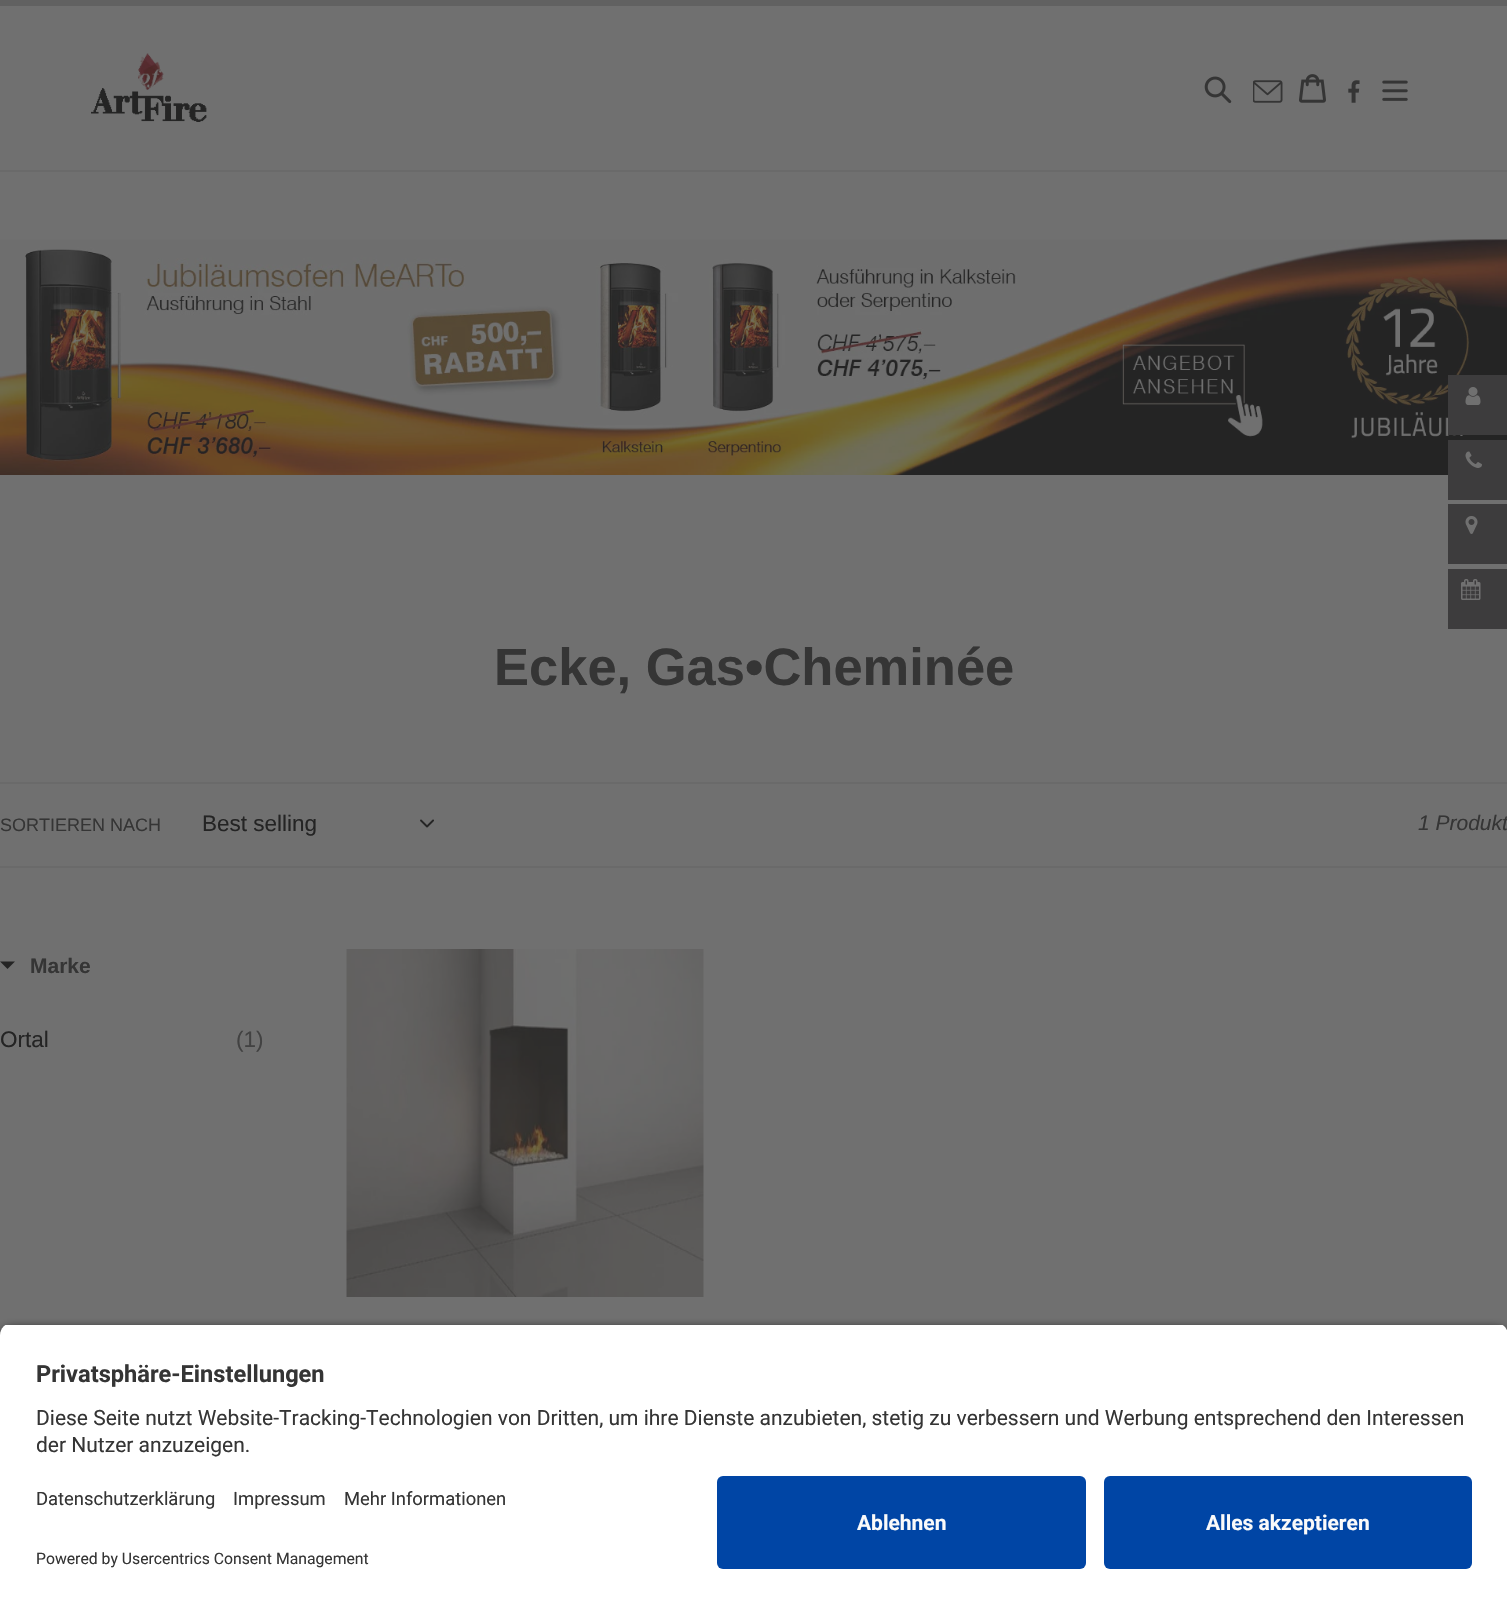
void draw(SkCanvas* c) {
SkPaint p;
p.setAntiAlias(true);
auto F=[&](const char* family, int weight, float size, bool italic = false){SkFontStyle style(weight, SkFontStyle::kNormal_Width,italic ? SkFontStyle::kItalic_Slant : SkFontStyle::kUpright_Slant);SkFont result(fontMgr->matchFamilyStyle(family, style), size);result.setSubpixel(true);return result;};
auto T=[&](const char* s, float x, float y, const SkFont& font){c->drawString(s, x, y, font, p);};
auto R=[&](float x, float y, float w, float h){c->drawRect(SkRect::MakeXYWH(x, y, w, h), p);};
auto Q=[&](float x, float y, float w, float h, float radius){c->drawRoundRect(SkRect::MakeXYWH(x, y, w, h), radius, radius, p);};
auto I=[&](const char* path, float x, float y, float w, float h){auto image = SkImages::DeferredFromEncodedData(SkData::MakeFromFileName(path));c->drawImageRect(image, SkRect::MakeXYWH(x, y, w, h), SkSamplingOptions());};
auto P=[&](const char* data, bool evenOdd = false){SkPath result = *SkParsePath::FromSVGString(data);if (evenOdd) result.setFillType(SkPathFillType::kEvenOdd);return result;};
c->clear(0xff707070);
p.setColor(0xff616161);
R(0,0,1507,6);
p.setColor(0xff6a6a6a);
R(0,170,1507,2);
I("1.png",91,53,116,69);
I("2.png",1204,76,28,28);
I("3.png",1253,80,30,23);
I("4.png",1299,74,27,29);
I("5.png",1348,80,12,23);
I("6.png",1382,80,26,21);
I("11.png",0,239,1507,236);
p.setColor(0xff3d3c3d);
R(1448,375,59,60);
I("7.png",1465,387,16,18);
R(1448,440,59,60);
I("8.png",1465,451,17,17);
R(1448,504,59,60);
I("9.png",1465,516,13,18);
R(1448,569,59,60);
I("10.png",1461,579,20,21);
auto f1 = F("Liberation Sans",700,52.5);
p.setColor(0xff353535);
T("Ecke, Gas•Cheminée",494,685,f1);
p.setColor(0xff6a6a6a);
R(0,782,1507,2);
R(0,866,1507,2);
auto f2 = F("Liberation Sans",400,18);
p.setColor(0xff353535);
T("SORTIEREN NACH",0,831,f2);
auto f3 = F("Liberation Sans",400,22.5);
p.setColor(0xff242424);
T("Best selling",202,831,f3);
I("12.png",420,819,14,9);
auto f4 = F("Liberation Sans",400,21,true);
p.setColor(0xff353535);
T("1 Produkt",1418,830,f4);
p.setColor(0xff242424);
c->drawPath(P("M0 961.5h15l-7.5 7.5z"),p);
auto f5 = F("Liberation Sans",700,21);
p.setColor(0xff353535);
T("Marke",30,973,f5);
p.setColor(0xff242424);
T("Ortal",0,1047,f3);
p.setColor(0xff424242);
T("(1)",236,1047,f3);
I("13.png",346,949,358,348);
p.setColor(0xcc000000);
p.setMaskFilter(SkMaskFilter::MakeBlur(kNormal_SkBlurStyle, 5));
c->drawRoundRect(SkRect::MakeXYWH(0,1328,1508,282),12,12,p);
p.setMaskFilter(nullptr);
c->save();
c->clipPath(P("M12 1323h1484c6.5 0 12 5.5 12 12v129h-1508v-129c0-6.5 5.5-12 12-12z"),true);
p.setColor(0xffffffff);
R(0,1325,1507,139);
c->restore();
auto f6 = F("Roboto",700,23.6);
p.setColor(0xff353535);
T("Privatsphäre-Einstellungen",36,1382,f6);
auto f7 = F("Roboto",400,21);
T("Diese Seite nutzt Website-Tracking-Technologien von Dritten, um ihre Dienste anzubieten, stetig zu verbessern und Werbung entsprechend den Interessen",36,1425,f7);
T("der Nutzer anzuzeigen.",36,1452,f7);
p.setColor(0xffffffff);
R(0,1464,1507,140);
auto f8 = F("Roboto",400,18.4);
p.setColor(0xff353535);
T("Datenschutzerklärung",36,1505,f8);
T("Impressum",233,1505,f8);
T("Mehr Informationen",344,1505,f8);
auto f9 = F("Roboto",400,15.75);
T("Powered by Usercentrics Consent Management",36,1564,f9);
p.setColor(0xff0045a5);
Q(717,1476,369,93,6);
auto f10 = F("Roboto",700,21);
p.setColor(0xfffafafa);
T("Ablehnen",857,1530,f10);
p.setColor(0xff0045a5);
Q(1104,1476,368,93,6);
p.setColor(0xfffafafa);
T("Alles akzeptieren",1206,1530,f10);
}
